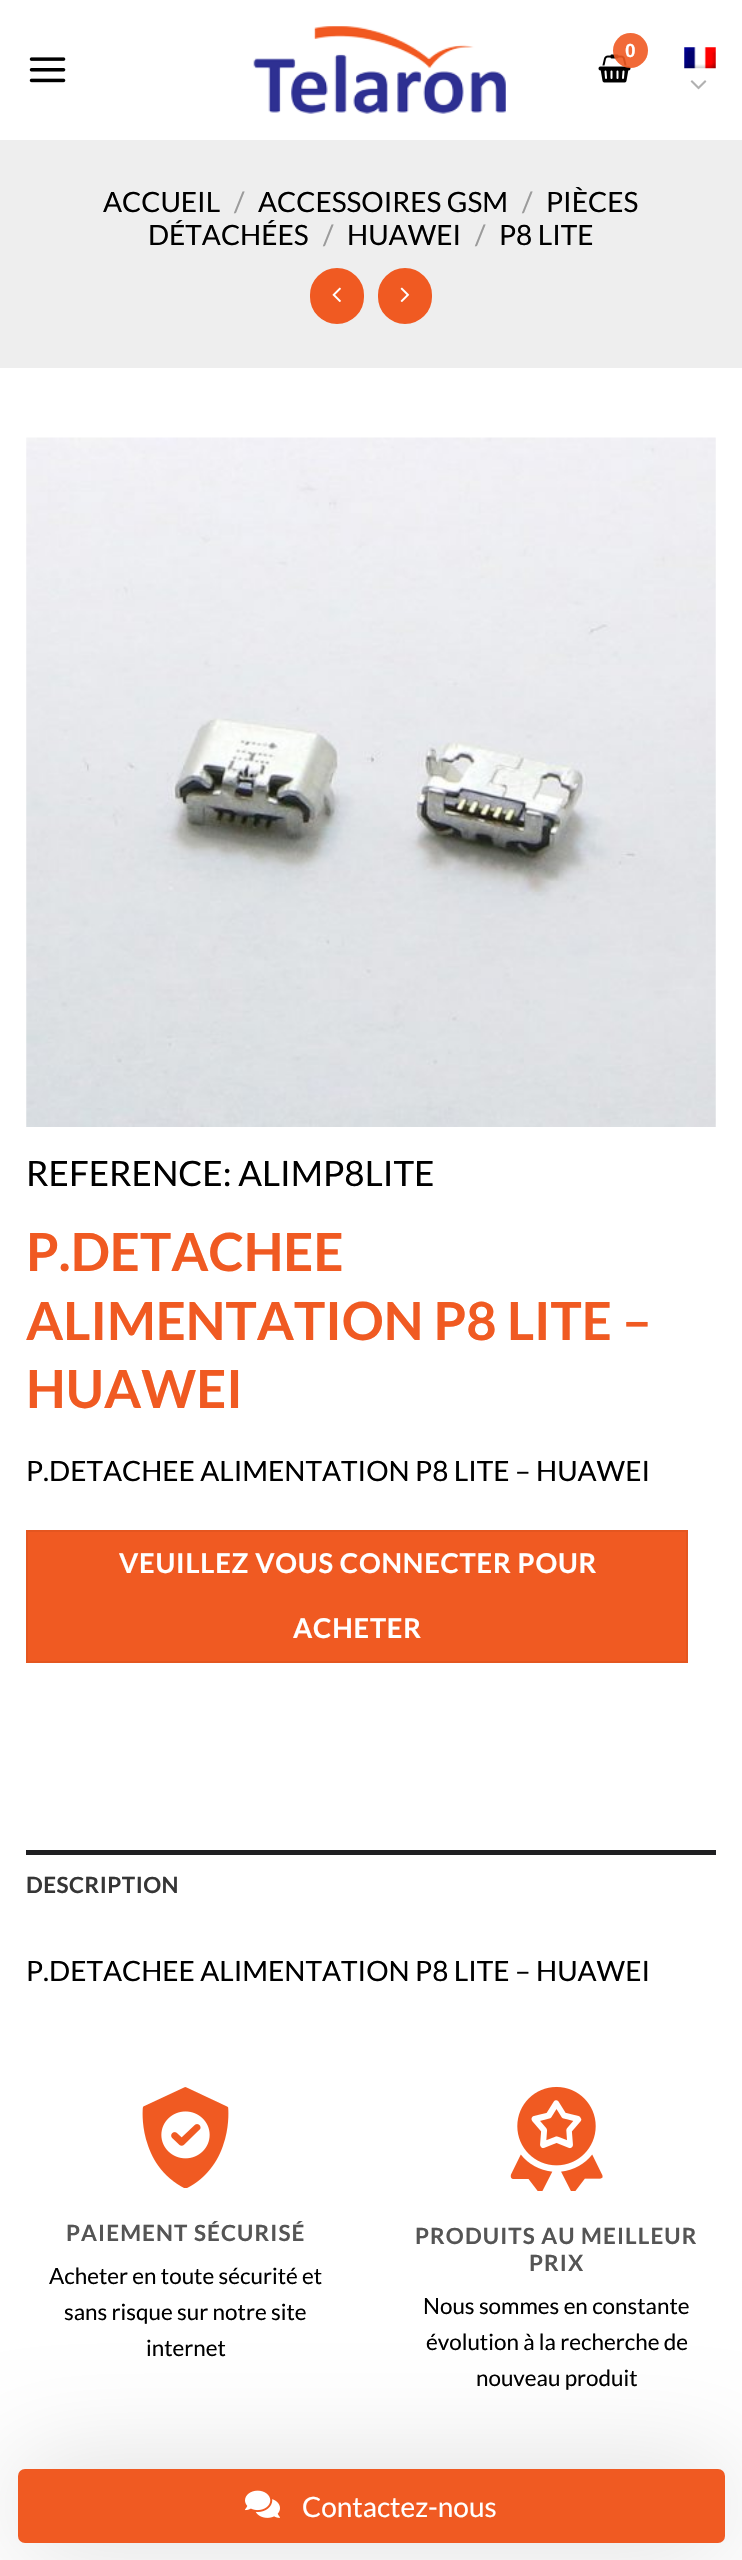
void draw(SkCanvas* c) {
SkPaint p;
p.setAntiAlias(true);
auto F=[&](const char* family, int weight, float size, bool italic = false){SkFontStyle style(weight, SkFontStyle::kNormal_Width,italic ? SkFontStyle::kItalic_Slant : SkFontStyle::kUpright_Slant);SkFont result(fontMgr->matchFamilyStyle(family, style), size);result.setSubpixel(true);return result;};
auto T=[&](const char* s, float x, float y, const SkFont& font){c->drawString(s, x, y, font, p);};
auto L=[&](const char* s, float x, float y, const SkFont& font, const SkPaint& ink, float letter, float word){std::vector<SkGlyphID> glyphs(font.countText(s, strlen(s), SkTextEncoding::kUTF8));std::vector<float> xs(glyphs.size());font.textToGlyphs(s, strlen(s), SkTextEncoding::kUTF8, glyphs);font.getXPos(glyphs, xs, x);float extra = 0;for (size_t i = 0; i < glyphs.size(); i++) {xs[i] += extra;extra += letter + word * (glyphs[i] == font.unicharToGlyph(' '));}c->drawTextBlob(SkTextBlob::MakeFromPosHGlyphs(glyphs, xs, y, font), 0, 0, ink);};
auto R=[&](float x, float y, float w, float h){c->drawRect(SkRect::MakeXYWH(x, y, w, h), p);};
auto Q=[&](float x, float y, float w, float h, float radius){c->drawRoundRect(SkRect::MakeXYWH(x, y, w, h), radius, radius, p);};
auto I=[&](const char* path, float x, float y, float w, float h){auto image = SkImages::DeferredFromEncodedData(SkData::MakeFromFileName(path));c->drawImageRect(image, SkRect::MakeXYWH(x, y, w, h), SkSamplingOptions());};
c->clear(0xffffffff);
I("1.png",253,26,253,88);
I("2.png",598,54,33,29);
p.setColor(0xe6f05a22);
c->drawCircle(630.5,50.5,17.5,p);
auto f1 = F("Liberation Sans",700,19);
p.setColor(0xffffffff);
L("0",625,57,f1,p,-1,0);
I("3.png",684,47,32,22);
I("4.png",690,80,17,10);
I("5.png",29,57,37,26);
p.setColor(0xffeeeeee);
R(0,140,742,228);
auto f2 = F("Lato",400,28);
p.setColor(0xff000000);
T("ACCUEIL",103,212,f2);
p.setColor(0xff9b9b9b);
T("/",234,212,f2);
p.setColor(0xff000000);
T("ACCESSOIRES GSM",258,212,f2);
p.setColor(0xff9b9b9b);
T("/",522,212,f2);
p.setColor(0xff000000);
T("PIÈCES",546,212,f2);
T("DÉTACHÉES",148,245,f2);
p.setColor(0xff9b9b9b);
T("/",323,245,f2);
p.setColor(0xff000000);
T("HUAWEI",347,245,f2);
p.setColor(0xff9b9b9b);
T("/",475,245,f2);
p.setColor(0xff000000);
T("P8 LITE",499,245,f2);
p.setColor(0xfff05a22);
c->drawRoundRect(SkRect::MakeXYWH(312,270,50,52),25,25,p);
p.setStroke(true);
p.setStrokeWidth(4);
c->drawRoundRect(SkRect::MakeXYWH(312,270,50,52),25,25,p);
I("6.png",332,287,9,15);
p.setStroke(false);
c->drawRoundRect(SkRect::MakeXYWH(380,270,50,52),25,25,p);
p.setStroke(true);
c->drawRoundRect(SkRect::MakeXYWH(380,270,50,52),25,25,p);
I("7.png",400,287,10,15);
I("8.png",26,437,690,690);
auto f3 = F("Lato",400,35);
p.setStroke(false);
p.setColor(0xff000000);
T("REFERENCE: ALIMP8LITE",26,1186,f3);
auto f4 = F("Lato",700,52.5);
p.setColor(0xfff05a22);
T("P.DETACHEE",26,1271,f4);
T("ALIMENTATION P8 LITE –",26,1340,f4);
T("HUAWEI",26,1408,f4);
p.setColor(0xff000000);
T("P.DETACHEE ALIMENTATION P8 LITE – HUAWEI",26,1481,f2);
p.setColor(0xfff05a22);
c->drawRect(SkRect::MakeXYWH(27,1531,660,131),p);
p.setStroke(true);
p.setStrokeWidth(2);
p.setColor(0xffe45620);
c->drawRect(SkRect::MakeXYWH(27,1531,660,131),p);
auto f5 = F("Lato",700,27.2);
p.setStroke(false);
p.setColor(0xffffffff);
L("VEUILLEZ VOUS CONNECTER POUR",119,1573,f5,p,.8,0);
L("ACHETER",293,1638,f5,p,.8,0);
p.setColor(0xff1f1f21);
R(26,1850,690,5);
auto f6 = F("Lato",700,22.4);
p.setColor(0xff363636);
L("DESCRIPTION",26,1893,f6,p,.5,0);
p.setColor(0xff000000);
T("P.DETACHEE ALIMENTATION P8 LITE – HUAWEI",26,1981,f2);
I("9.png",142,2087,87,101);
p.setColor(0xff555555);
L("PAIEMENT SÉCURISÉ",66,2241,f6,p,1.1,0);
auto f7 = F("Lato",400,22.4);
p.setColor(0xff000000);
T("Acheter en toute sécurité et",49,2284,f7);
T("sans risque sur notre site",64,2320,f7);
T("internet",146,2356,f7);
I("10.png",510,2086,93,105);
p.setColor(0xff555555);
L("PRODUITS AU MEILLEUR",415,2244,f6,p,1.1,0);
L("PRIX",529,2271,f6,p,1.1,0);
p.setColor(0xff000000);
T("Nous sommes en constante",423,2314,f7);
T("évolution à la recherche de",426,2350,f7);
T("nouveau produit",476,2386,f7);
p.setColor(0x26000000);
p.setMaskFilter(SkMaskFilter::MakeBlur(kNormal_SkBlurStyle, 52.5));
c->drawRoundRect(SkRect::MakeXYWH(18,2469,707,74),7,7,p);
p.setMaskFilter(nullptr);
p.setColor(0xfff05a22);
Q(18,2469,707,74,7);
I("11.png",245,2490,35,28);
p.setColor(0xffffffff);
T("Contactez-nous",302,2517,f2);
}
